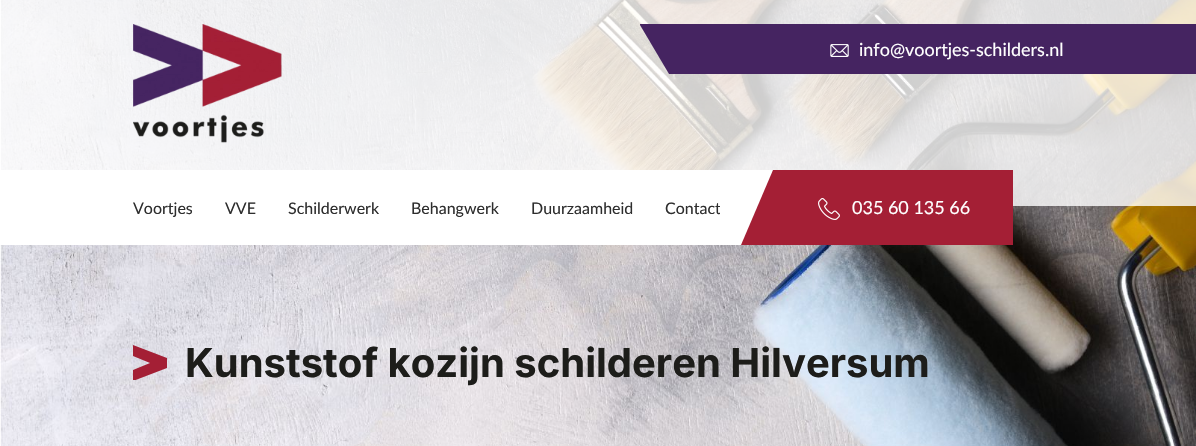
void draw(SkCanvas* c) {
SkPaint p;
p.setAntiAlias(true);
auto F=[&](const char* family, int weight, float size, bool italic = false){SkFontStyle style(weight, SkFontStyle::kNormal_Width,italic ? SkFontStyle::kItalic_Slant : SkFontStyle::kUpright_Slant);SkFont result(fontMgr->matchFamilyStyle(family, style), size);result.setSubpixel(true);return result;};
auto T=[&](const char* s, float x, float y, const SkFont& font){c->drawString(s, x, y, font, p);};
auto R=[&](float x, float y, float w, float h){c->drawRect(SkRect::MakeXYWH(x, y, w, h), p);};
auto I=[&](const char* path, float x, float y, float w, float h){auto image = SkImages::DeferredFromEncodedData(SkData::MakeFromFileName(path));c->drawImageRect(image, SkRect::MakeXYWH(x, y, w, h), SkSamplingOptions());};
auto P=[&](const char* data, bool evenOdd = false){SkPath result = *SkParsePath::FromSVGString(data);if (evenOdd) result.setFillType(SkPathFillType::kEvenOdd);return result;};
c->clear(0xffffffff);
I("4.png",0,0,1196,446);
p.setColor(0xccffffff);
R(0,0,1196,206);
I("1.png",133,24,149,119);
p.setColor(0xff452461);
c->drawPath(P("M640 24v1l29 49h394v-50z"),p);
I("2.png",830,44,19,13);
auto f1 = F("Lato",400,18);
p.setColor(0xffffffff);
T("info@voortjes-schilders.nl",859,56,f1);
p.setColor(0xff452461);
R(1063,24,133,50);
p.setColor(0xffffffff);
R(0,170,720,75);
auto f2 = F("Lato",400,16);
p.setColor(0xff2e2e2e);
T("Voortjes",133,214,f2);
T("VVE",225,214,f2);
T("Schilderwerk",288,214,f2);
T("Behangwerk",411,214,f2);
T("Duurzaamheid",531,214,f2);
T("Contact",665,214,f2);
p.setColor(0xffa41f35);
R(741,170,272,75);
p.setColor(0xffffffff);
c->drawPath(P("M720 170v75h21l32-75z"),p);
I("3.png",818,198,22,22);
T("035 60 135 66",852,214,f1);
c->save();
c->clipRect(SkRect::MakeXYWH(133,345,34,35));
p.setColor(0xffa41f35);
c->drawPath(P("M133 356v-11l34 13v10l-34 13v-11l17-7z"),p);
c->restore();
auto f3 = F("Inter",700,40);
p.setColor(0xff1d1d1a);
T("Kunststof kozijn schilderen Hilversum",185,377,f3);
}
